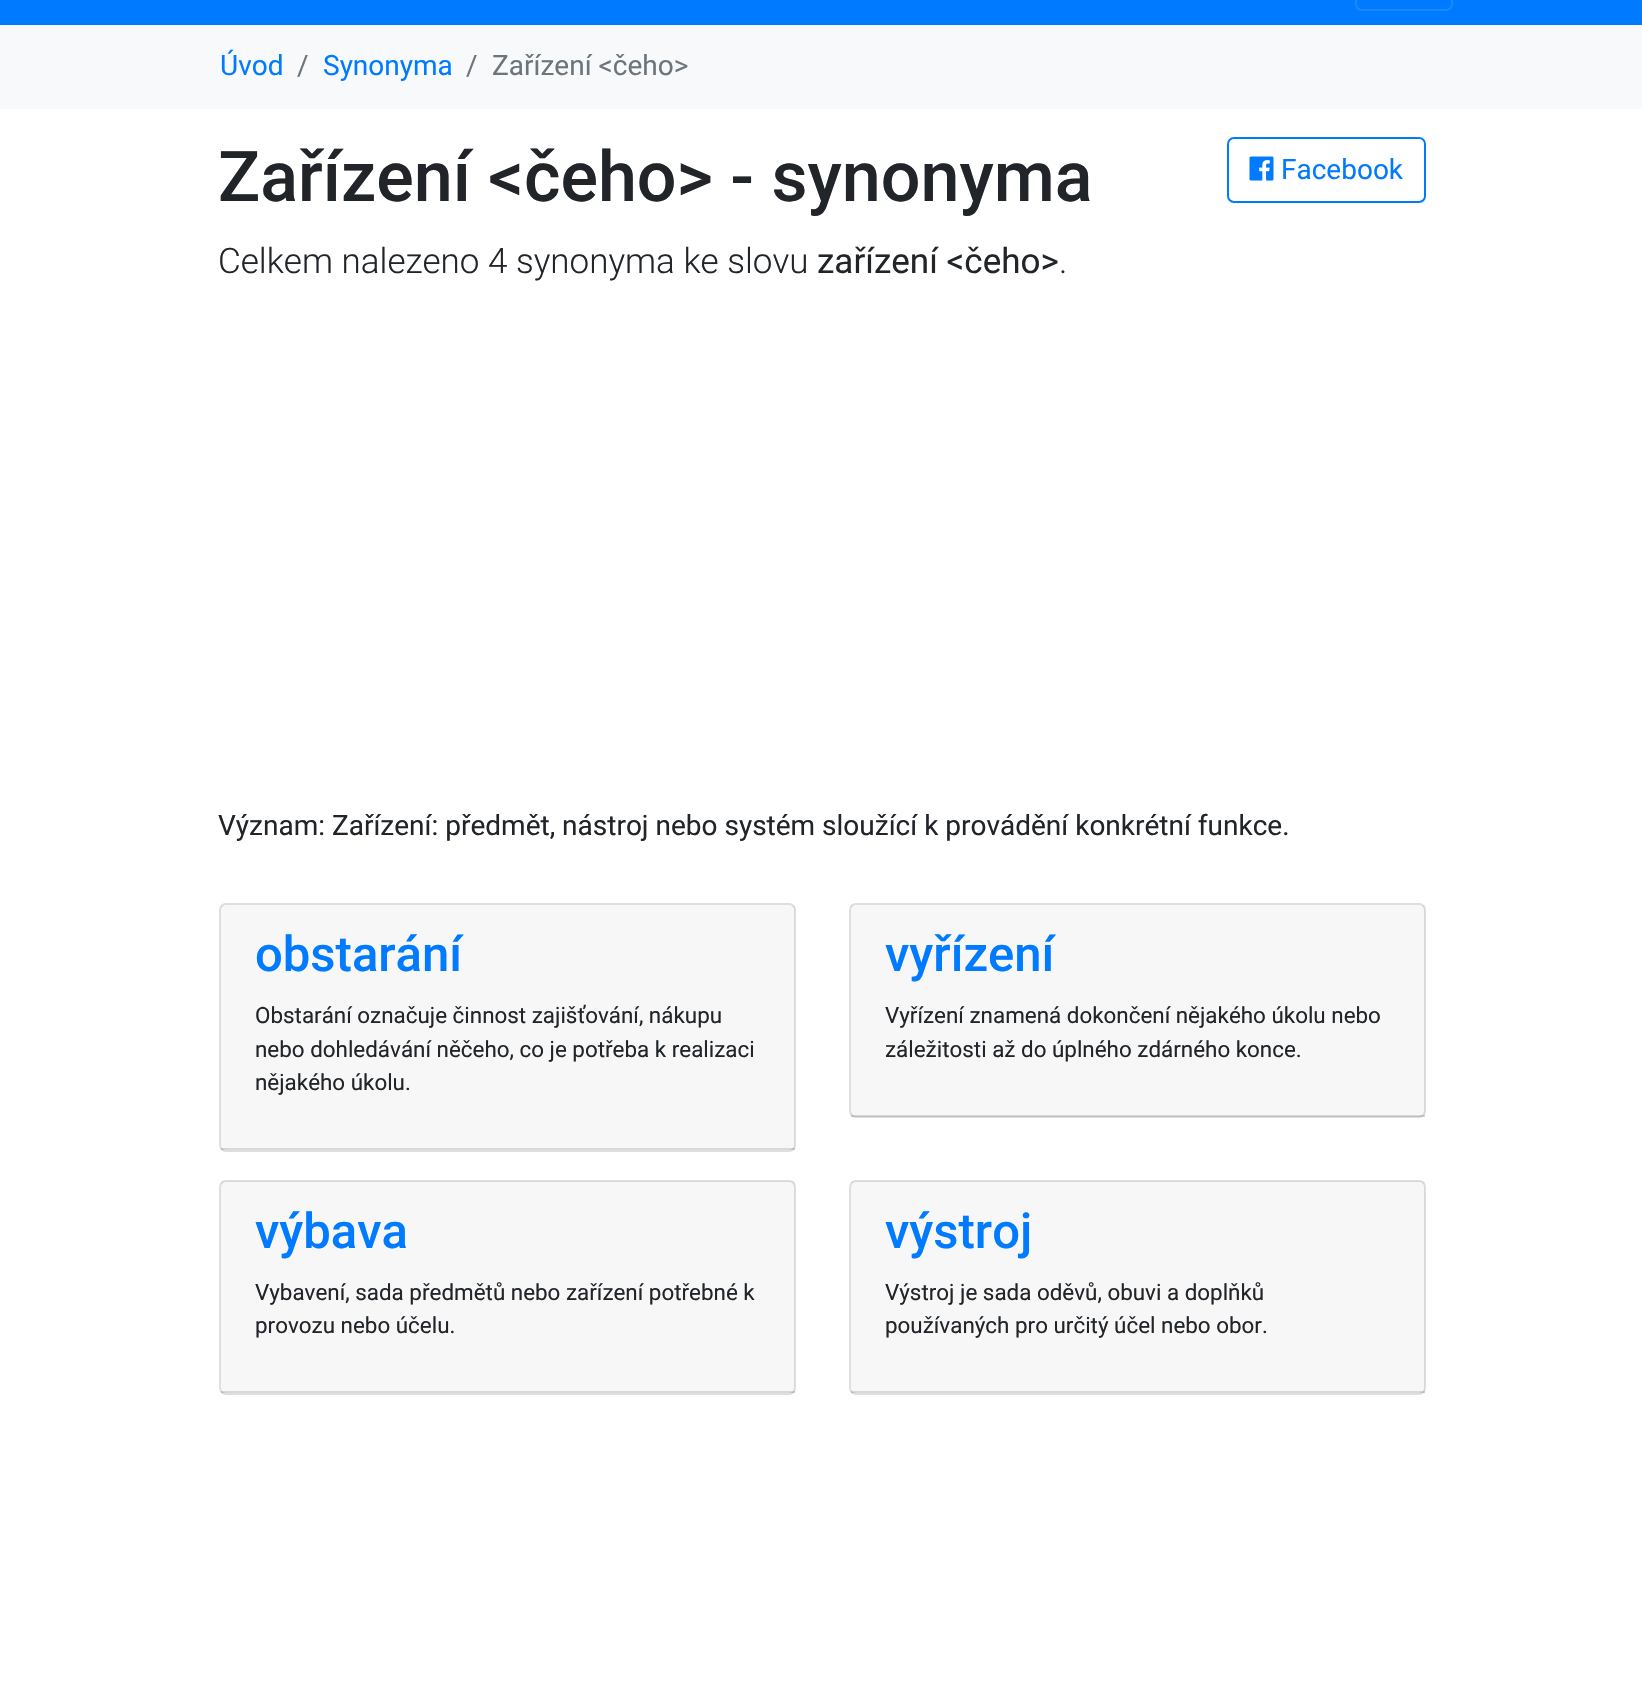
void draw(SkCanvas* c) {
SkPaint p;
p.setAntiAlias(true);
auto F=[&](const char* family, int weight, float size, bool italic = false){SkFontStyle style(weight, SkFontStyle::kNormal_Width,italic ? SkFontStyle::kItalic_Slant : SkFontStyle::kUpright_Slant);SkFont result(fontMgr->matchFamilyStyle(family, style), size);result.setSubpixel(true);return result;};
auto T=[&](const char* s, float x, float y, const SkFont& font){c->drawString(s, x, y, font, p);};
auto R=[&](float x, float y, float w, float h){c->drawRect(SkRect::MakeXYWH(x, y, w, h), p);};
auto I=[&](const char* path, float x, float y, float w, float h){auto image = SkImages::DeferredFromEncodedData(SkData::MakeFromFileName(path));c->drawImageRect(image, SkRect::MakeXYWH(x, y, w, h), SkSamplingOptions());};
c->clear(0xffffffff);
p.setColor(0xff007bff);
R(0,0,1642,25);
p.setStroke(true);
p.setStrokeWidth(2);
p.setColor(0xff1a88ff);
c->drawRoundRect(SkRect::MakeXYWH(1356,-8,96,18),6,6,p);
p.setStroke(false);
p.setColor(0xfff8f9fa);
R(0,25,1642,84);
auto f1 = F("Roboto",400,28);
p.setColor(0xff007bff);
T("Úvod",220,75,f1);
p.setColor(0xff6c757d);
T("/",297,75,f1);
p.setColor(0xff007bff);
T("Synonyma",323,75,f1);
p.setColor(0xff6c757d);
T("/",466,75,f1);
T("Zařízení <čeho>",492,75,f1);
auto f2 = F("Roboto",500,70);
p.setColor(0xff212529);
T("Zařízení <čeho> - synonyma",218,201,f2);
p.setStroke(true);
p.setColor(0xff007bff);
c->drawRoundRect(SkRect::MakeXYWH(1228,138,197,64),6,6,p);
I("1.png",1249,156,25,25);
p.setStroke(false);
T("Facebook",1281,179,f1);
auto f3 = F("Roboto",300,35);
p.setColor(0xff212529);
T("Celkem nalezeno 4 synonyma ke slovu",218,273,f3);
auto f4 = F("Roboto",400,35);
T("zařízení <čeho>",817,273,f4);
T(".",1059,273,f3);
T("Význam: Zařízení: předmět, nástroj nebo systém sloužící k provádění konkrétní funkce.",218,835,f1);
p.setStroke(true);
p.setColor(0xffdfdfdf);
c->drawRoundRect(SkRect::MakeXYWH(220,904,575,247),6,6,p);
p.setStroke(false);
p.setColor(0x08000000);
R(221,905,574,245);
p.setColor(0x1f000000);
R(221,1148,574,2);
auto f5 = F("Roboto",500,49);
p.setColor(0xff007bff);
T("obstarání",255,971,f5);
auto f6 = F("Roboto",400,22.4);
p.setColor(0xff212529);
T("Obstarání označuje činnost zajišťování, nákupu",255,1023,f6);
T("nebo dohledávání něčeho, co je potřeba k realizaci",255,1057,f6);
T("nějakého úkolu.",255,1090,f6);
p.setStroke(true);
p.setColor(0xffdfdfdf);
c->drawRoundRect(SkRect::MakeXYWH(850,904,575,213),6,6,p);
p.setStroke(false);
p.setColor(0x08000000);
R(851,905,574,212);
p.setColor(0x1f000000);
R(851,1115,574,2);
p.setColor(0xff007bff);
T("vyřízení",885,971,f5);
p.setColor(0xff212529);
T("Vyřízení znamená dokončení nějakého úkolu nebo",885,1023,f6);
T("záležitosti až do úplného zdárného konce.",885,1057,f6);
p.setStroke(true);
p.setColor(0xffdfdfdf);
c->drawRoundRect(SkRect::MakeXYWH(220,1181,575,213),6,6,p);
p.setStroke(false);
p.setColor(0x08000000);
R(221,1181,574,212);
p.setColor(0x1f000000);
R(221,1391,574,2);
p.setColor(0xff007bff);
T("výbava",255,1248,f5);
p.setColor(0xff212529);
T("Vybavení, sada předmětů nebo zařízení potřebné k",255,1300,f6);
T("provozu nebo účelu.",255,1333,f6);
p.setStroke(true);
p.setColor(0xffdfdfdf);
c->drawRoundRect(SkRect::MakeXYWH(850,1181,575,213),6,6,p);
p.setStroke(false);
p.setColor(0x08000000);
R(851,1181,574,212);
p.setColor(0x1f000000);
R(851,1391,574,2);
p.setColor(0xff007bff);
T("výstroj",885,1248,f5);
p.setColor(0xff212529);
T("Výstroj je sada oděvů, obuvi a doplňků",885,1300,f6);
T("používaných pro určitý účel nebo obor.",885,1333,f6);
}
